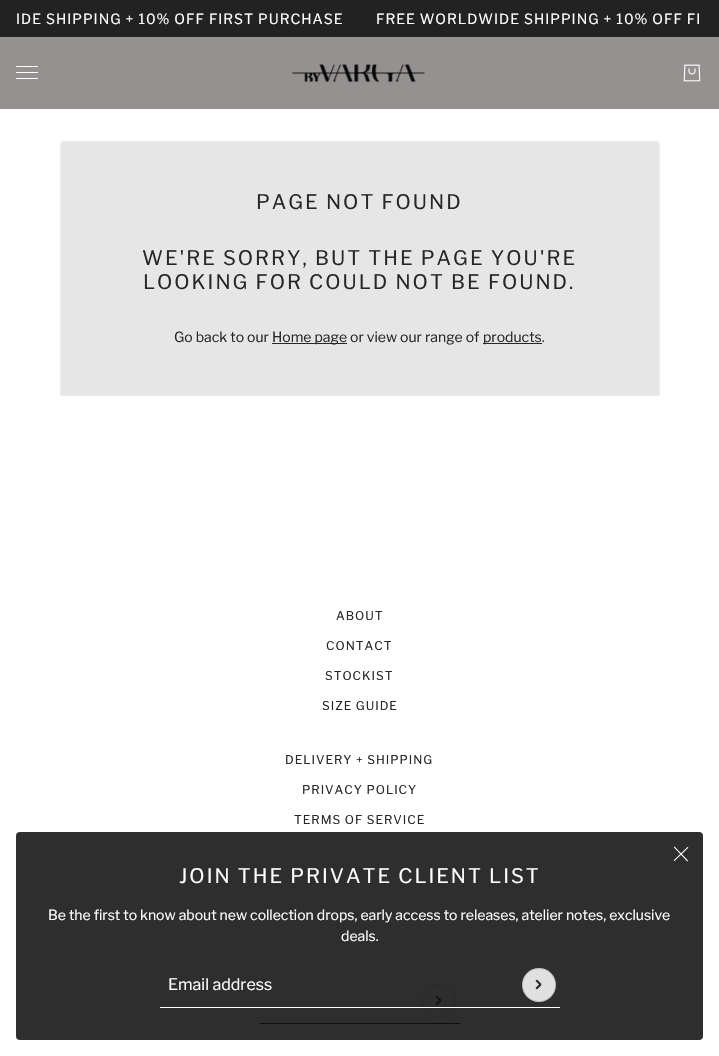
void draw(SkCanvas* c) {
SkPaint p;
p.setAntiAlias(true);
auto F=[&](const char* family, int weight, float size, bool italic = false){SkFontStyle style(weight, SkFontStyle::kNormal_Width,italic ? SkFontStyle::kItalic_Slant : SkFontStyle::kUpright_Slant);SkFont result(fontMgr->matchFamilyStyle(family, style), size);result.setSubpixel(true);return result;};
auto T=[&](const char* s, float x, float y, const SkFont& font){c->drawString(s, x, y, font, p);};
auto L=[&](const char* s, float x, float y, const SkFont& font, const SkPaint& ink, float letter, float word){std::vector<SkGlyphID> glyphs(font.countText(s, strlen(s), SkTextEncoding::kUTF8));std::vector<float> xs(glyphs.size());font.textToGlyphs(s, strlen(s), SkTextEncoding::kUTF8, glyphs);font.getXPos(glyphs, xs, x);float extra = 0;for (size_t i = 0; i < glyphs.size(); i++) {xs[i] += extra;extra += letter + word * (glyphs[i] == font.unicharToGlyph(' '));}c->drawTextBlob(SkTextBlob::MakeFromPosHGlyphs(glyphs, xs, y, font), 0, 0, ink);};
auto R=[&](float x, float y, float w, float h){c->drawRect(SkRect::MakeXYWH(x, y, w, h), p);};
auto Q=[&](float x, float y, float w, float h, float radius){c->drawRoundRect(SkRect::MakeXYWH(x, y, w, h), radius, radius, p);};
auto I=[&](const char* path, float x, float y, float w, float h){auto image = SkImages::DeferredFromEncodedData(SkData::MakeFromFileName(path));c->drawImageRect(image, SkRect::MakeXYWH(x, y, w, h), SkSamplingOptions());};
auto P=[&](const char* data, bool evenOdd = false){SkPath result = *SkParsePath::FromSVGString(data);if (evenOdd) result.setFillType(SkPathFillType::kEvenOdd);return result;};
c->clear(0xffffffff);
p.setColor(0xff222222);
R(0,0,719,37);
auto f1 = F("Libre Franklin",400,14);
p.setColor(0xffffffff);
L("IDE SHIPPING + 10% OFF FIRST PURCHASE",16,24,f1,p,1,0);
L("FREE WORLDWIDE SHIPPING + 10% OFF FI",376,24,f1,p,1,0);
p.setColor(0xff969191);
R(0,37,719,72);
p.setColor(0xffffffff);
Q(16,66,22,1,.5);
Q(16,72,22,1,.5);
Q(16,78,22,1,.5);
I("1.png",292,64,133,19);
I("2.png",683,64,18,18);
p.setColor(0xffe6e6e6);
c->drawRoundRect(SkRect::MakeXYWH(60.5,141.5,599,254),2.5,2.5,p);
p.setStroke(true);
p.setStrokeWidth(1);
p.setColor(0xffeaeaea);
c->drawRoundRect(SkRect::MakeXYWH(60.5,141.5,599,254),2.5,2.5,p);
auto f2 = F("Libre Franklin",400,20);
p.setStroke(false);
p.setColor(0xff272727);
L("PAGE NOT FOUND",256,209,f2,p,2,0);
L("WE'RE SORRY, BUT THE PAGE YOU'RE",142,265,f2,p,2,0);
L("LOOKING FOR COULD NOT BE FOUND.",143,289,f2,p,2,0);
T("Go back to our",174,342,f1);
R(272,343,75,1);
T("Home page or view our range of",272,342,f1);
R(483,343,59,1);
T("products.",483,342,f1);
auto f3 = F("Libre Franklin",400,12);
L("ABOUT",336,620,f3,p,1,0);
L("CONTACT",326,650,f3,p,1,0);
L("STOCKIST",325,680,f3,p,1,0);
L("SIZE GUIDE",322,710,f3,p,1,0);
L("DELIVERY + SHIPPING",285,764,f3,p,1,0);
L("PRIVACY POLICY",302,794,f3,p,1,0);
L("TERMS OF SERVICE",294,824,f3,p,1,0);
R(260,1023,200,1);
p.setStroke(true);
p.setColor(0xffdedede);
c->drawCircle(439,1001,16.5,p);
p.setStroke(false);
p.setColor(0xff474747);
c->drawPath(P("M435.5 1004l4.5-4.5l1.5 1.5l-4.5 4.5z"),p);
c->drawPath(P("M437 995.5l4.5 4.5l-1.5 1.5l-4.5-4.5z"),p);
p.setColor(0xd9090909);
Q(16,832,687,208,4);
p.setColor(0xffffffff);
c->drawPath(P("M675 847l13 13.5v.5c-.5 1-2-1-3-2l-11-11.5c-.5-.5 .5-1 1-.5z"),p);
c->drawPath(P("M674 860l13.5-13h.5c1 .5-1 2-2 3l-11.5 11c-.5 .5-1-.5-.5-1z"),p);
L("JOIN THE PRIVATE CLIENT LIST",179,883,f2,p,2,0);
T("Be the first to know about new collection drops, early access to releases, atelier notes, exclusive",48,920,f1);
T("deals.",341,941,f1);
R(160,1007,400,1);
auto f4 = F("Libre Franklin",400,16);
T("Email address",168,990,f4);
p.setColor(0xffe0e0e0);
c->drawCircle(539,985,17,p);
p.setStroke(true);
p.setColor(0x2e282828);
c->drawCircle(539,985,16.5,p);
p.setStroke(false);
p.setColor(0xff282828);
c->drawPath(P("M535.5 988l4.5-4.5l1.5 1.5l-4.5 4.5z"),p);
c->drawPath(P("M537 979.5l4.5 4.5l-1.5 1.5l-4.5-4.5z"),p);
}
